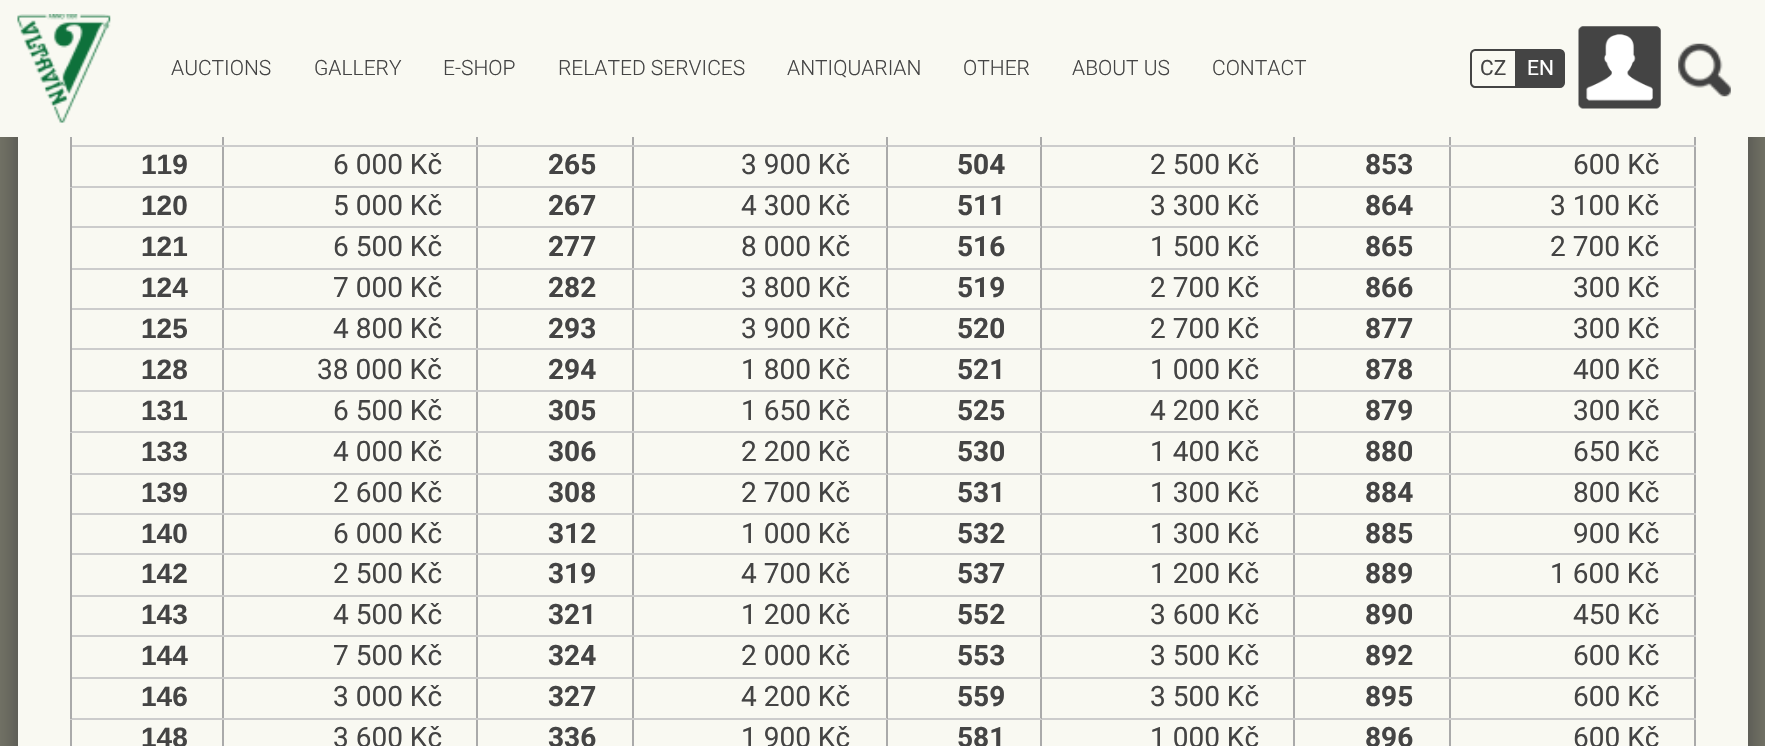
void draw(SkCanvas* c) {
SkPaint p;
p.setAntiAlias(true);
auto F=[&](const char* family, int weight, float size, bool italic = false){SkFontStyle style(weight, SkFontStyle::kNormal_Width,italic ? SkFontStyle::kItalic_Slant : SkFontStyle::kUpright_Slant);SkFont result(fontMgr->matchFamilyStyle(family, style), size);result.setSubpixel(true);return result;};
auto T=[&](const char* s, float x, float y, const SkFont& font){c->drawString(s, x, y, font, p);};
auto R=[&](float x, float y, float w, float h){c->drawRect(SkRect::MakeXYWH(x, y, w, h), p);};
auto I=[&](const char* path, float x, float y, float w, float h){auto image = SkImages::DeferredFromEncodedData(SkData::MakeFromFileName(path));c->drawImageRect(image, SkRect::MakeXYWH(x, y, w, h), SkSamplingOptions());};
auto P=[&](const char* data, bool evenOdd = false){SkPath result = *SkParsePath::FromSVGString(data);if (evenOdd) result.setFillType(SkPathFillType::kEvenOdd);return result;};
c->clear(0xff79796a);
p.setColor(0xff444444);
p.setMaskFilter(SkMaskFilter::MakeBlur(kNormal_SkBlurStyle, 17.5));
c->drawRect(SkRect::MakeXYWH(18,-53,1730,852),p);
p.setMaskFilter(nullptr);
p.setColor(0xfff9f9f2);
R(0,0,1765,137);
I("1.png",17,14,94,109);
auto f1 = F("Roboto",300,21);
p.setColor(0xff444444);
T("AUCTIONS",171,75,f1);
T("GALLERY",314,75,f1);
T("E-SHOP",443,75,f1);
T("RELATED SERVICES",558,75,f1);
T("ANTIQUARIAN",787,75,f1);
T("OTHER",963,75,f1);
T("ABOUT US",1072,75,f1);
T("CONTACT",1212,75,f1);
p.setStroke(true);
p.setStrokeWidth(2);
c->drawPath(P("M1475 50h41v37h-41c-2 0-4-2-4-4v-29c0-2 2-4 4-4z"),p);
auto f2 = F("Roboto",400,21);
p.setStroke(false);
T("CZ",1480,75,f2);
c->drawPath(P("M1518 50h42c2 0 4 2 4 4v29c0 2-2 4-4 4h-42z"),p);
p.setStroke(true);
c->drawPath(P("M1518 50h42c2 0 4 2 4 4v29c0 2-2 4-4 4h-42z"),p);
p.setStroke(false);
p.setColor(0xffffffff);
T("EN",1527,75,f2);
I("2.png",1578,26,83,83);
I("3.png",1678,43,53,54);
p.setColor(0xfff9f9f2);
R(18,137,1730,609);
p.setColor(0xffaaaaaa);
R(1694,226,2,520);
R(1694,137,2,91);
R(1449,718,2,28);
p.setColor(0xffcccccc);
R(1449,718,247,2);
p.setColor(0xffaaaaaa);
R(1449,677,2,42);
p.setColor(0xffcccccc);
R(1449,677,247,2);
p.setColor(0xffaaaaaa);
R(1449,635,2,44);
p.setColor(0xffcccccc);
R(1449,635,247,2);
p.setColor(0xffaaaaaa);
R(1449,595,2,42);
p.setColor(0xffcccccc);
R(1449,595,247,2);
p.setColor(0xffaaaaaa);
R(1449,553,2,44);
p.setColor(0xffcccccc);
R(1449,553,247,2);
p.setColor(0xffaaaaaa);
R(1449,513,2,42);
p.setColor(0xffcccccc);
R(1449,513,247,2);
p.setColor(0xffaaaaaa);
R(1449,473,2,42);
p.setColor(0xffcccccc);
R(1449,473,247,2);
p.setColor(0xffaaaaaa);
R(1449,431,2,43);
p.setColor(0xffcccccc);
R(1449,431,247,2);
p.setColor(0xffaaaaaa);
R(1449,390,2,42);
p.setColor(0xffcccccc);
R(1449,390,247,2);
p.setColor(0xffaaaaaa);
R(1449,348,2,44);
p.setColor(0xffcccccc);
R(1449,348,247,2);
p.setColor(0xffaaaaaa);
R(1449,308,2,42);
p.setColor(0xffcccccc);
R(1449,308,247,2);
p.setColor(0xffaaaaaa);
R(1449,268,2,42);
p.setColor(0xffcccccc);
R(1449,268,247,2);
p.setColor(0xffaaaaaa);
R(1449,226,2,44);
p.setColor(0xffcccccc);
R(1449,226,247,2);
p.setColor(0xffaaaaaa);
R(1449,186,2,42);
p.setColor(0xffcccccc);
R(1449,186,247,2);
p.setColor(0xffaaaaaa);
R(1449,145,2,42);
p.setColor(0xffcccccc);
R(1449,145,247,2);
p.setColor(0xffaaaaaa);
R(1449,137,2,10);
R(1293,718,2,28);
p.setColor(0xffcccccc);
R(1293,718,158,2);
p.setColor(0xffaaaaaa);
R(1293,677,2,42);
p.setColor(0xffcccccc);
R(1293,677,158,2);
p.setColor(0xffaaaaaa);
R(1293,635,2,44);
p.setColor(0xffcccccc);
R(1293,635,158,2);
p.setColor(0xffaaaaaa);
R(1293,595,2,42);
p.setColor(0xffcccccc);
R(1293,595,158,2);
p.setColor(0xffaaaaaa);
R(1293,553,2,44);
p.setColor(0xffcccccc);
R(1293,553,158,2);
p.setColor(0xffaaaaaa);
R(1293,513,2,42);
p.setColor(0xffcccccc);
R(1293,513,158,2);
p.setColor(0xffaaaaaa);
R(1293,473,2,42);
p.setColor(0xffcccccc);
R(1293,473,158,2);
p.setColor(0xffaaaaaa);
R(1293,431,2,43);
p.setColor(0xffcccccc);
R(1293,431,158,2);
p.setColor(0xffaaaaaa);
R(1293,390,2,42);
p.setColor(0xffcccccc);
R(1293,390,158,2);
p.setColor(0xffaaaaaa);
R(1293,348,2,44);
p.setColor(0xffcccccc);
R(1293,348,158,2);
p.setColor(0xffaaaaaa);
R(1293,308,2,42);
p.setColor(0xffcccccc);
R(1293,308,158,2);
p.setColor(0xffaaaaaa);
R(1293,268,2,42);
p.setColor(0xffcccccc);
R(1293,268,158,2);
p.setColor(0xffaaaaaa);
R(1293,226,2,44);
p.setColor(0xffcccccc);
R(1293,226,158,2);
p.setColor(0xffaaaaaa);
R(1293,186,2,42);
p.setColor(0xffcccccc);
R(1293,186,158,2);
p.setColor(0xffaaaaaa);
R(1293,145,2,42);
p.setColor(0xffcccccc);
R(1293,145,158,2);
p.setColor(0xffaaaaaa);
R(1293,137,2,10);
R(1040,718,2,28);
p.setColor(0xffcccccc);
R(1040,718,255,2);
p.setColor(0xffaaaaaa);
R(1040,677,2,42);
p.setColor(0xffcccccc);
R(1040,677,255,2);
p.setColor(0xffaaaaaa);
R(1040,635,2,44);
p.setColor(0xffcccccc);
R(1040,635,255,2);
p.setColor(0xffaaaaaa);
R(1040,595,2,42);
p.setColor(0xffcccccc);
R(1040,595,255,2);
p.setColor(0xffaaaaaa);
R(1040,553,2,44);
p.setColor(0xffcccccc);
R(1040,553,255,2);
p.setColor(0xffaaaaaa);
R(1040,513,2,42);
p.setColor(0xffcccccc);
R(1040,513,255,2);
p.setColor(0xffaaaaaa);
R(1040,473,2,42);
p.setColor(0xffcccccc);
R(1040,473,255,2);
p.setColor(0xffaaaaaa);
R(1040,431,2,43);
p.setColor(0xffcccccc);
R(1040,431,255,2);
p.setColor(0xffaaaaaa);
R(1040,390,2,42);
p.setColor(0xffcccccc);
R(1040,390,255,2);
p.setColor(0xffaaaaaa);
R(1040,348,2,44);
p.setColor(0xffcccccc);
R(1040,348,255,2);
p.setColor(0xffaaaaaa);
R(1040,308,2,42);
p.setColor(0xffcccccc);
R(1040,308,255,2);
p.setColor(0xffaaaaaa);
R(1040,268,2,42);
p.setColor(0xffcccccc);
R(1040,268,255,2);
p.setColor(0xffaaaaaa);
R(1040,226,2,44);
p.setColor(0xffcccccc);
R(1040,226,255,2);
p.setColor(0xffaaaaaa);
R(1040,186,2,42);
p.setColor(0xffcccccc);
R(1040,186,255,2);
p.setColor(0xffaaaaaa);
R(1040,145,2,42);
p.setColor(0xffcccccc);
R(1040,145,255,2);
p.setColor(0xffaaaaaa);
R(1040,137,2,10);
R(886,718,2,28);
p.setColor(0xffcccccc);
R(886,718,155,2);
p.setColor(0xffaaaaaa);
R(886,677,2,42);
p.setColor(0xffcccccc);
R(886,677,155,2);
p.setColor(0xffaaaaaa);
R(886,635,2,44);
p.setColor(0xffcccccc);
R(886,635,155,2);
p.setColor(0xffaaaaaa);
R(886,595,2,42);
p.setColor(0xffcccccc);
R(886,595,155,2);
p.setColor(0xffaaaaaa);
R(886,553,2,44);
p.setColor(0xffcccccc);
R(886,553,155,2);
p.setColor(0xffaaaaaa);
R(886,513,2,42);
p.setColor(0xffcccccc);
R(886,513,155,2);
p.setColor(0xffaaaaaa);
R(886,473,2,42);
p.setColor(0xffcccccc);
R(886,473,155,2);
p.setColor(0xffaaaaaa);
R(886,431,2,43);
p.setColor(0xffcccccc);
R(886,431,155,2);
p.setColor(0xffaaaaaa);
R(886,390,2,42);
p.setColor(0xffcccccc);
R(886,390,155,2);
p.setColor(0xffaaaaaa);
R(886,348,2,44);
p.setColor(0xffcccccc);
R(886,348,155,2);
p.setColor(0xffaaaaaa);
R(886,308,2,42);
p.setColor(0xffcccccc);
R(886,308,155,2);
p.setColor(0xffaaaaaa);
R(886,268,2,42);
p.setColor(0xffcccccc);
R(886,268,155,2);
p.setColor(0xffaaaaaa);
R(886,226,2,44);
p.setColor(0xffcccccc);
R(886,226,155,2);
p.setColor(0xffaaaaaa);
R(886,186,2,42);
p.setColor(0xffcccccc);
R(886,186,155,2);
p.setColor(0xffaaaaaa);
R(886,145,2,42);
p.setColor(0xffcccccc);
R(886,145,155,2);
p.setColor(0xffaaaaaa);
R(886,137,2,10);
R(632,718,2,28);
p.setColor(0xffcccccc);
R(632,718,255,2);
p.setColor(0xffaaaaaa);
R(632,677,2,42);
p.setColor(0xffcccccc);
R(632,677,255,2);
p.setColor(0xffaaaaaa);
R(632,635,2,44);
p.setColor(0xffcccccc);
R(632,635,255,2);
p.setColor(0xffaaaaaa);
R(632,595,2,42);
p.setColor(0xffcccccc);
R(632,595,255,2);
p.setColor(0xffaaaaaa);
R(632,553,2,44);
p.setColor(0xffcccccc);
R(632,553,255,2);
p.setColor(0xffaaaaaa);
R(632,513,2,42);
p.setColor(0xffcccccc);
R(632,513,255,2);
p.setColor(0xffaaaaaa);
R(632,473,2,42);
p.setColor(0xffcccccc);
R(632,473,255,2);
p.setColor(0xffaaaaaa);
R(632,431,2,43);
p.setColor(0xffcccccc);
R(632,431,255,2);
p.setColor(0xffaaaaaa);
R(632,390,2,42);
p.setColor(0xffcccccc);
R(632,390,255,2);
p.setColor(0xffaaaaaa);
R(632,348,2,44);
p.setColor(0xffcccccc);
R(632,348,255,2);
p.setColor(0xffaaaaaa);
R(632,308,2,42);
p.setColor(0xffcccccc);
R(632,308,255,2);
p.setColor(0xffaaaaaa);
R(632,268,2,42);
p.setColor(0xffcccccc);
R(632,268,255,2);
p.setColor(0xffaaaaaa);
R(632,226,2,44);
p.setColor(0xffcccccc);
R(632,226,255,2);
p.setColor(0xffaaaaaa);
R(632,186,2,42);
p.setColor(0xffcccccc);
R(632,186,255,2);
p.setColor(0xffaaaaaa);
R(632,145,2,42);
p.setColor(0xffcccccc);
R(632,145,255,2);
p.setColor(0xffaaaaaa);
R(632,137,2,10);
R(476,718,2,28);
p.setColor(0xffcccccc);
R(476,718,158,2);
p.setColor(0xffaaaaaa);
R(476,677,2,42);
p.setColor(0xffcccccc);
R(476,677,158,2);
p.setColor(0xffaaaaaa);
R(476,635,2,44);
p.setColor(0xffcccccc);
R(476,635,158,2);
p.setColor(0xffaaaaaa);
R(476,595,2,42);
p.setColor(0xffcccccc);
R(476,595,158,2);
p.setColor(0xffaaaaaa);
R(476,553,2,44);
p.setColor(0xffcccccc);
R(476,553,158,2);
p.setColor(0xffaaaaaa);
R(476,513,2,42);
p.setColor(0xffcccccc);
R(476,513,158,2);
p.setColor(0xffaaaaaa);
R(476,473,2,42);
p.setColor(0xffcccccc);
R(476,473,158,2);
p.setColor(0xffaaaaaa);
R(476,431,2,43);
p.setColor(0xffcccccc);
R(476,431,158,2);
p.setColor(0xffaaaaaa);
R(476,390,2,42);
p.setColor(0xffcccccc);
R(476,390,158,2);
p.setColor(0xffaaaaaa);
R(476,348,2,44);
p.setColor(0xffcccccc);
R(476,348,158,2);
p.setColor(0xffaaaaaa);
R(476,308,2,42);
p.setColor(0xffcccccc);
R(476,308,158,2);
p.setColor(0xffaaaaaa);
R(476,268,2,42);
p.setColor(0xffcccccc);
R(476,268,158,2);
p.setColor(0xffaaaaaa);
R(476,226,2,44);
p.setColor(0xffcccccc);
R(476,226,158,2);
p.setColor(0xffaaaaaa);
R(476,186,2,42);
p.setColor(0xffcccccc);
R(476,186,158,2);
p.setColor(0xffaaaaaa);
R(476,145,2,42);
p.setColor(0xffcccccc);
R(476,145,158,2);
p.setColor(0xffaaaaaa);
R(476,137,2,10);
R(222,718,2,28);
p.setColor(0xffcccccc);
R(222,718,256,2);
p.setColor(0xffaaaaaa);
R(222,677,2,42);
p.setColor(0xffcccccc);
R(222,677,256,2);
p.setColor(0xffaaaaaa);
R(222,635,2,44);
p.setColor(0xffcccccc);
R(222,635,256,2);
p.setColor(0xffaaaaaa);
R(222,595,2,42);
p.setColor(0xffcccccc);
R(222,595,256,2);
p.setColor(0xffaaaaaa);
R(222,553,2,44);
p.setColor(0xffcccccc);
R(222,553,256,2);
p.setColor(0xffaaaaaa);
R(222,513,2,42);
p.setColor(0xffcccccc);
R(222,513,256,2);
p.setColor(0xffaaaaaa);
R(222,473,2,42);
p.setColor(0xffcccccc);
R(222,473,256,2);
p.setColor(0xffaaaaaa);
R(222,431,2,43);
p.setColor(0xffcccccc);
R(222,431,256,2);
p.setColor(0xffaaaaaa);
R(222,390,2,42);
p.setColor(0xffcccccc);
R(222,390,256,2);
p.setColor(0xffaaaaaa);
R(222,348,2,44);
p.setColor(0xffcccccc);
R(222,348,256,2);
p.setColor(0xffaaaaaa);
R(222,308,2,42);
p.setColor(0xffcccccc);
R(222,308,256,2);
p.setColor(0xffaaaaaa);
R(222,268,2,42);
p.setColor(0xffcccccc);
R(222,268,256,2);
p.setColor(0xffaaaaaa);
R(222,226,2,44);
p.setColor(0xffcccccc);
R(222,226,256,2);
p.setColor(0xffaaaaaa);
R(222,186,2,42);
p.setColor(0xffcccccc);
R(222,186,256,2);
p.setColor(0xffaaaaaa);
R(222,145,2,42);
p.setColor(0xffcccccc);
R(222,145,256,2);
p.setColor(0xffaaaaaa);
R(222,137,2,10);
R(70,718,2,28);
p.setColor(0xffcccccc);
R(70,718,154,2);
p.setColor(0xffaaaaaa);
R(70,677,2,42);
p.setColor(0xffcccccc);
R(70,677,154,2);
p.setColor(0xffaaaaaa);
R(70,635,2,44);
p.setColor(0xffcccccc);
R(70,635,154,2);
p.setColor(0xffaaaaaa);
R(70,595,2,42);
p.setColor(0xffcccccc);
R(70,595,154,2);
p.setColor(0xffaaaaaa);
R(70,553,2,44);
p.setColor(0xffcccccc);
R(70,553,154,2);
p.setColor(0xffaaaaaa);
R(70,513,2,42);
p.setColor(0xffcccccc);
R(70,513,154,2);
p.setColor(0xffaaaaaa);
R(70,473,2,42);
p.setColor(0xffcccccc);
R(70,473,154,2);
p.setColor(0xffaaaaaa);
R(70,431,2,43);
p.setColor(0xffcccccc);
R(70,431,154,2);
p.setColor(0xffaaaaaa);
R(70,390,2,42);
p.setColor(0xffcccccc);
R(70,390,154,2);
p.setColor(0xffaaaaaa);
R(70,348,2,44);
p.setColor(0xffcccccc);
R(70,348,154,2);
p.setColor(0xffaaaaaa);
R(70,308,2,42);
p.setColor(0xffcccccc);
R(70,308,154,2);
p.setColor(0xffaaaaaa);
R(70,268,2,42);
p.setColor(0xffcccccc);
R(70,268,154,2);
p.setColor(0xffaaaaaa);
R(70,226,2,44);
p.setColor(0xffcccccc);
R(70,226,154,2);
p.setColor(0xffaaaaaa);
R(70,186,2,42);
p.setColor(0xffcccccc);
R(70,186,154,2);
p.setColor(0xffaaaaaa);
R(70,145,2,42);
p.setColor(0xffcccccc);
R(70,145,154,2);
p.setColor(0xffaaaaaa);
R(70,137,2,10);
auto f3 = F("Liberation Sans",700,28);
p.setColor(0xff444444);
T("119",141,174,f3);
auto f4 = F("Roboto",400,28);
T("6 000 Kč",333,174,f4);
auto f5 = F("Roboto",700,28);
T("265",548,174,f5);
T("3 900 Kč",741,174,f4);
T("504",957,174,f5);
T("2 500 Kč",1150,174,f4);
T("853",1365,174,f5);
T("600 Kč",1573,174,f4);
T("120",141,215,f3);
T("5 000 Kč",333,215,f4);
T("267",548,215,f5);
T("4 300 Kč",741,215,f4);
T("511",957,215,f5);
T("3 300 Kč",1150,215,f4);
T("864",1365,215,f5);
T("3 100 Kč",1550,215,f4);
T("121",141,256,f3);
T("6 500 Kč",333,256,f4);
T("277",548,256,f5);
T("8 000 Kč",741,256,f4);
T("516",957,256,f5);
T("1 500 Kč",1150,256,f4);
T("865",1365,256,f5);
T("2 700 Kč",1550,256,f4);
T("124",141,297,f3);
T("7 000 Kč",333,297,f4);
T("282",548,297,f5);
T("3 800 Kč",741,297,f4);
T("519",957,297,f5);
T("2 700 Kč",1150,297,f4);
T("866",1365,297,f5);
T("300 Kč",1573,297,f4);
T("125",141,338,f3);
T("4 800 Kč",333,338,f4);
T("293",548,338,f5);
T("3 900 Kč",741,338,f4);
T("520",957,338,f5);
T("2 700 Kč",1150,338,f4);
T("877",1365,338,f5);
T("300 Kč",1573,338,f4);
T("128",141,379,f3);
T("38 000 Kč",317,379,f4);
T("294",548,379,f5);
T("1 800 Kč",741,379,f4);
T("521",957,379,f5);
T("1 000 Kč",1150,379,f4);
T("878",1365,379,f5);
T("400 Kč",1573,379,f4);
T("131",141,420,f3);
T("6 500 Kč",333,420,f4);
T("305",548,420,f5);
T("1 650 Kč",741,420,f4);
T("525",957,420,f5);
T("4 200 Kč",1150,420,f4);
T("879",1365,420,f5);
T("300 Kč",1573,420,f4);
T("133",141,461,f3);
T("4 000 Kč",333,461,f4);
T("306",548,461,f5);
T("2 200 Kč",741,461,f4);
T("530",957,461,f5);
T("1 400 Kč",1150,461,f4);
T("880",1365,461,f5);
T("650 Kč",1573,461,f4);
T("139",141,502,f3);
T("2 600 Kč",333,502,f4);
T("308",548,502,f5);
T("2 700 Kč",741,502,f4);
T("531",957,502,f5);
T("1 300 Kč",1150,502,f4);
T("884",1365,502,f5);
T("800 Kč",1573,502,f4);
T("140",141,543,f3);
T("6 000 Kč",333,543,f4);
T("312",548,543,f5);
T("1 000 Kč",741,543,f4);
T("532",957,543,f5);
T("1 300 Kč",1150,543,f4);
T("885",1365,543,f5);
T("900 Kč",1573,543,f4);
T("142",141,583,f3);
T("2 500 Kč",333,583,f4);
T("319",548,583,f5);
T("4 700 Kč",741,583,f4);
T("537",957,583,f5);
T("1 200 Kč",1150,583,f4);
T("889",1365,583,f5);
T("1 600 Kč",1550,583,f4);
T("143",141,624,f3);
T("4 500 Kč",333,624,f4);
T("321",548,624,f5);
T("1 200 Kč",741,624,f4);
T("552",957,624,f5);
T("3 600 Kč",1150,624,f4);
T("890",1365,624,f5);
T("450 Kč",1573,624,f4);
T("144",141,665,f3);
T("7 500 Kč",333,665,f4);
T("324",548,665,f5);
T("2 000 Kč",741,665,f4);
T("553",957,665,f5);
T("3 500 Kč",1150,665,f4);
T("892",1365,665,f5);
T("600 Kč",1573,665,f4);
T("146",141,706,f3);
T("3 000 Kč",333,706,f4);
T("327",548,706,f5);
T("4 200 Kč",741,706,f4);
T("559",957,706,f5);
T("3 500 Kč",1150,706,f4);
T("895",1365,706,f5);
T("600 Kč",1573,706,f4);
T("148",141,747,f3);
T("3 600 Kč",333,747,f4);
T("336",548,747,f5);
T("1 900 Kč",741,747,f4);
T("581",957,747,f5);
T("1 000 Kč",1150,747,f4);
T("896",1365,747,f5);
T("600 Kč",1573,747,f4);
}
